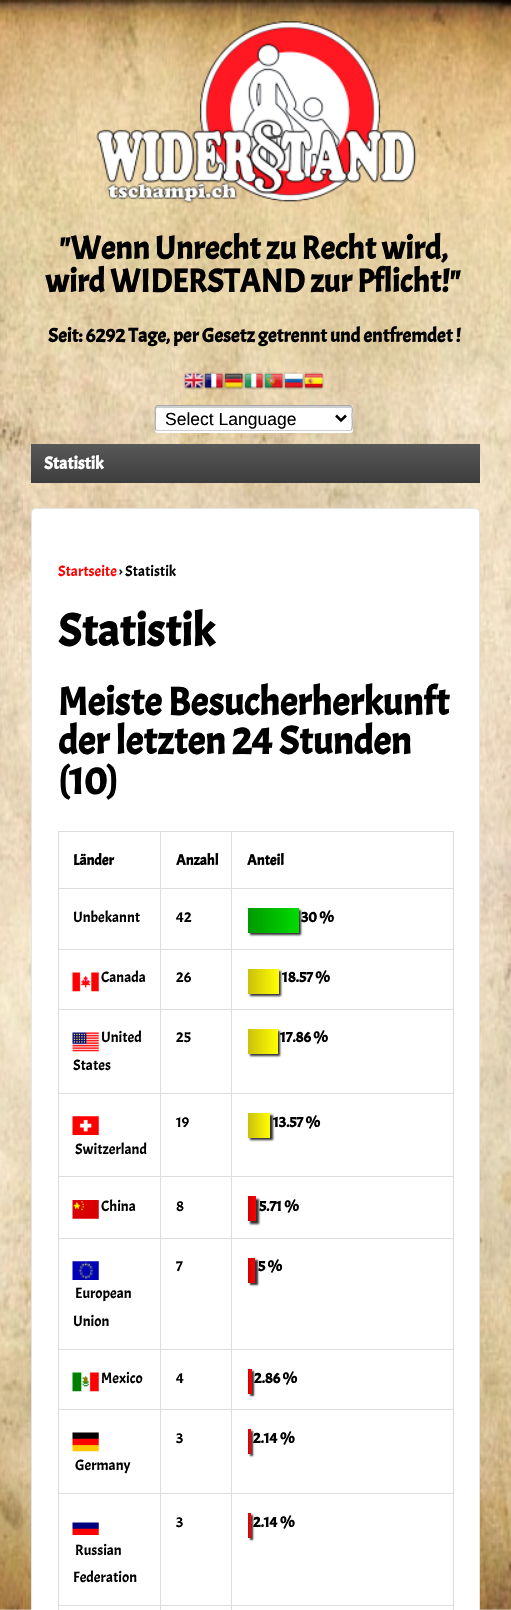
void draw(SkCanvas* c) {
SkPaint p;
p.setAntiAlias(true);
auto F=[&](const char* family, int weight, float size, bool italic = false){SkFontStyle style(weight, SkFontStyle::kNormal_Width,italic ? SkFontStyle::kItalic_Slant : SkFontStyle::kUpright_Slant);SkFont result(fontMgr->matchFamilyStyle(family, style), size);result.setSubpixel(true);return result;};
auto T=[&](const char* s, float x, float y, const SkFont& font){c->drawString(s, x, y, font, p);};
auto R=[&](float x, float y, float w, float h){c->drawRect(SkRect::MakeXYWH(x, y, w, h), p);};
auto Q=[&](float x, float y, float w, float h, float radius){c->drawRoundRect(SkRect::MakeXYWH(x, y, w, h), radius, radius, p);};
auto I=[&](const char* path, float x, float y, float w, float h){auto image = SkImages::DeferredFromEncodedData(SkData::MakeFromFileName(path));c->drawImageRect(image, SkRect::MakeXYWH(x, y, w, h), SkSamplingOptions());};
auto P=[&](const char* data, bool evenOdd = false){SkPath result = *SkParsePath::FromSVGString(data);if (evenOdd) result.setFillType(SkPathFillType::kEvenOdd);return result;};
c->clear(0xffffffff);
I("1.png",0,0,511,1610);
I("2.png",96,21,321,182);
auto f1 = F("Acme",700,32.75);
p.setColor(0xff000000);
T("\"Wenn Unrecht zu Recht wird,",59,259,f1);
T("wird WIDERSTAND zur Pflicht!\"",45,292,f1);
auto f2 = F("Acme",700,19.7);
T("Seit: 6292 Tage, per Gesetz getrennt und entfremdet !",48,342,f2);
I("3.png",183,372,21,18);
I("4.png",203,372,21,18);
I("5.png",223,372,21,18);
I("6.png",243,372,21,18);
I("7.png",263,372,21,18);
I("8.png",283,372,21,18);
I("9.png",303,372,21,18);
p.setColor(0xffffffff);
c->drawPath(P("M155 429v1c0 2 1 3 3 3h192c2 0 3-1 3-3v-22l-1-1v22c0 1-1 2-2 2h-192c-2 0-3-1-3-2z"),p);
Q(155,405,198,26,2.5);
p.setColor(0xffcccccc);
c->drawPath(P("M158 408h193v1c0-1 0-3-1-3h-193c-1 0-1 2-1 3c0-1 1-1 2-1z"),p);
p.setStroke(true);
p.setStrokeWidth(1.2);
c->drawPath(P("M351.5 430l-1.5 .5h-192.5l-1.5-.5"),p);
p.setColor(0xffaaaaaa);
c->drawPath(P("M156 430c-1.5-1.5-.5-13-.5-15.5c0-1-1.5-9 2-9h192.5c3.5 0 2 8 2 9c0 2.5 1 14-.5 15.5"),p);
p.setStrokeWidth(2.5);
p.setColor(0xff000000);
c->drawPath(P("M336 415.5l5 5l5-5"),p);
auto f3 = F("Liberation Sans",400,17.5);
p.setStroke(false);
T("Select Language",165,425,f3);
{
const SkColor colors[] = {0xff585858,0xff3d3d3d};
const float stops[] = {0,1};
const SkPoint ends[] = {{256,444}, {256,483}};
p.setShader(SkGradientShader::MakeLinear(ends, colors, stops, 2, SkTileMode::kClamp));
p.setAlpha(255);
}
R(31,444,449,39);
auto f4 = F("Acme",700,17.5);
p.setShader(nullptr);
p.setColor(0xffffffff);
T("Statistik",44,469,f4);
c->drawRoundRect(SkRect::MakeXYWH(31.5,508.5,448,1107),4.5,4.5,p);
p.setStroke(true);
p.setStrokeWidth(1);
p.setColor(0xffe5e5e5);
c->drawRoundRect(SkRect::MakeXYWH(31.5,508.5,448,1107),4.5,4.5,p);
auto f5 = F("Acme",400,15);
p.setStroke(false);
p.setColor(0xffff0000);
T("Startseite",58,576,f5);
p.setColor(0xff000000);
T("› Statistik",119,576,f5);
auto f6 = F("Acme",700,46);
T("Statistik",58,646,f6);
auto f7 = F("Acme",700,39.4);
T("Meiste Besucherherkunft",58,715,f7);
T("der letzten 24 Stunden",58,754,f7);
T("(10)",58,794,f7);
p.setColor(0xffdddddd);
R(58,831,396,1);
R(453,831,1,779);
R(58,831,1,779);
auto f8 = F("Acme",700,15);
p.setColor(0xff000000);
T("Länder",73,865,f8);
p.setColor(0xffdddddd);
R(231,888,223,1);
R(231,949,223,1);
R(231,1009,223,1);
R(231,1093,223,1);
R(231,1176,223,1);
R(231,1238,223,1);
R(231,1349,223,1);
R(231,1409,223,1);
R(231,1493,223,1);
R(231,1605,223,1);
R(231,1605,1,5);
R(160,1605,73,1);
R(231,1493,1,113);
R(160,1493,73,1);
R(231,1409,1,85);
R(160,1409,73,1);
R(231,1349,1,61);
R(160,1349,73,1);
R(231,1238,1,112);
R(160,1238,73,1);
R(231,1176,1,63);
R(160,1176,73,1);
R(231,1093,1,85);
R(160,1093,73,1);
R(231,1009,1,85);
R(160,1009,73,1);
R(231,949,1,61);
R(160,949,73,1);
R(231,888,1,62);
R(160,888,73,1);
R(160,1605,1,5);
R(58,1605,103,1);
R(160,1493,1,113);
R(58,1493,103,1);
R(160,1409,1,85);
R(58,1409,103,1);
R(160,1349,1,61);
R(58,1349,103,1);
R(160,1238,1,112);
R(58,1238,103,1);
R(160,1176,1,63);
R(58,1176,103,1);
R(160,1093,1,85);
R(58,1093,103,1);
R(160,1009,1,85);
R(58,1009,103,1);
R(160,949,1,61);
R(58,949,103,1);
R(160,888,1,62);
R(58,888,103,1);
R(160,831,1,58);
p.setColor(0xff000000);
T("Anzahl",176,865,f8);
p.setColor(0xffdddddd);
R(231,831,1,58);
p.setColor(0xff000000);
T("Anteil",247,865,f8);
T("Unbekannt",73,922,f5);
T("42",176,922,f5);
p.setColor(0xff333333);
p.setMaskFilter(SkMaskFilter::MakeBlur(kNormal_SkBlurStyle, 1));
c->drawRect(SkRect::MakeXYWH(250,910,51,25),p);
p.setMaskFilter(nullptr);
{
const SkColor colors[] = {0xff009900,0xff00dc00};
const float stops[] = {0,1};
const SkPoint ends[] = {{248,920}, {299,920}};
p.setShader(SkGradientShader::MakeLinear(ends, colors, stops, 2, SkTileMode::kClamp));
p.setAlpha(255);
}
R(248,908,51,25);
p.setShader(nullptr);
p.setColor(0xff000000);
T("30 %",301,922,f8);
I("10.png",72,972,27,20);
T("Canada",101,982,f5);
T("26",176,982,f5);
p.setColor(0xff333333);
p.setMaskFilter(SkMaskFilter::MakeBlur(kNormal_SkBlurStyle, 1));
c->drawRect(SkRect::MakeXYWH(250,971,31,25),p);
p.setMaskFilter(nullptr);
{
const SkColor colors[] = {0xffccc00c,0xffffff00};
const float stops[] = {0,1};
const SkPoint ends[] = {{248,981}, {279,981}};
p.setShader(SkGradientShader::MakeLinear(ends, colors, stops, 2, SkTileMode::kClamp));
p.setAlpha(255);
}
R(248,969,31,25);
p.setShader(nullptr);
p.setColor(0xff000000);
T("18.57 %",282,982,f8);
I("11.png",72,1032,27,20);
T("United",101,1042,f5);
T("States",73,1070,f5);
T("25",176,1042,f5);
p.setColor(0xff333333);
p.setMaskFilter(SkMaskFilter::MakeBlur(kNormal_SkBlurStyle, 1));
c->drawRect(SkRect::MakeXYWH(250,1031,30,25),p);
p.setMaskFilter(nullptr);
{
const SkColor colors[] = {0xffccc00c,0xffffff00};
const float stops[] = {0,1};
const SkPoint ends[] = {{248,1041}, {278,1041}};
p.setShader(SkGradientShader::MakeLinear(ends, colors, stops, 2, SkTileMode::kClamp));
p.setAlpha(255);
}
R(248,1029,30,25);
p.setShader(nullptr);
p.setColor(0xff000000);
T("17.86 %",280,1042,f8);
T("19",176,1127,f5);
p.setColor(0xff333333);
p.setMaskFilter(SkMaskFilter::MakeBlur(kNormal_SkBlurStyle, 1));
c->drawRect(SkRect::MakeXYWH(250,1115,23,25),p);
p.setMaskFilter(nullptr);
{
const SkColor colors[] = {0xffccc00c,0xffffff00};
const float stops[] = {0,1};
const SkPoint ends[] = {{248,1125}, {270,1125}};
p.setShader(SkGradientShader::MakeLinear(ends, colors, stops, 2, SkTileMode::kClamp));
p.setAlpha(255);
}
R(248,1113,22,25);
p.setShader(nullptr);
p.setColor(0xff000000);
T("13.57 %",273,1127,f8);
I("12.png",72,1116,27,19);
T("Switzerland",75,1154,f5);
I("13.png",72,1200,27,19);
T("China",101,1211,f5);
T("8",176,1211,f5);
p.setColor(0xff333333);
p.setMaskFilter(SkMaskFilter::MakeBlur(kNormal_SkBlurStyle, 1));
c->drawRect(SkRect::MakeXYWH(250,1199,9,25),p);
p.setMaskFilter(nullptr);
{
const SkColor colors[] = {0xffcc0000,0xffff0000};
const float stops[] = {0,1};
const SkPoint ends[] = {{248,1209}, {256,1209}};
p.setShader(SkGradientShader::MakeLinear(ends, colors, stops, 2, SkTileMode::kClamp));
p.setAlpha(255);
}
R(248,1196,8,25);
p.setShader(nullptr);
p.setColor(0xff000000);
T("5.71 %",259,1211,f8);
T("7",176,1271,f5);
p.setColor(0xff333333);
p.setMaskFilter(SkMaskFilter::MakeBlur(kNormal_SkBlurStyle, 1));
c->drawRect(SkRect::MakeXYWH(250,1260,8,25),p);
p.setMaskFilter(nullptr);
{
const SkColor colors[] = {0xffcc0000,0xffff0000};
const float stops[] = {0,1};
const SkPoint ends[] = {{248,1270}, {255,1270}};
p.setShader(SkGradientShader::MakeLinear(ends, colors, stops, 2, SkTileMode::kClamp));
p.setAlpha(255);
}
R(248,1258,7,25);
p.setShader(nullptr);
p.setColor(0xff000000);
T("5 %",258,1271,f8);
I("14.png",72,1261,27,19);
T("European",75,1298,f5);
T("Union",73,1326,f5);
I("15.png",72,1372,27,20);
T("Mexico",101,1383,f5);
T("4",176,1383,f5);
p.setColor(0xff333333);
p.setMaskFilter(SkMaskFilter::MakeBlur(kNormal_SkBlurStyle, 1));
c->drawRect(SkRect::MakeXYWH(250,1371,4,25),p);
p.setMaskFilter(nullptr);
{
const SkColor colors[] = {0xffcc0000,0xffff0000};
const float stops[] = {0,1};
const SkPoint ends[] = {{248,1381}, {251,1381}};
p.setShader(SkGradientShader::MakeLinear(ends, colors, stops, 2, SkTileMode::kClamp));
p.setAlpha(255);
}
R(248,1369,4,25);
p.setShader(nullptr);
p.setColor(0xff000000);
T("2.86 %",254,1383,f8);
T("3",176,1443,f5);
p.setColor(0xff333333);
p.setMaskFilter(SkMaskFilter::MakeBlur(kNormal_SkBlurStyle, 1));
c->drawRect(SkRect::MakeXYWH(250,1431,3,25),p);
p.setMaskFilter(nullptr);
{
const SkColor colors[] = {0xffcc0000,0xffff0000};
const float stops[] = {0,1};
const SkPoint ends[] = {{248,1441}, {250,1441}};
p.setShader(SkGradientShader::MakeLinear(ends, colors, stops, 2, SkTileMode::kClamp));
p.setAlpha(255);
}
R(248,1429,3,25);
p.setShader(nullptr);
p.setColor(0xff000000);
T("2.14 %",253,1443,f8);
I("16.png",72,1432,27,20);
T("Germany",75,1470,f5);
T("3",176,1527,f5);
p.setColor(0xff333333);
p.setMaskFilter(SkMaskFilter::MakeBlur(kNormal_SkBlurStyle, 1));
c->drawRect(SkRect::MakeXYWH(250,1515,3,25),p);
p.setMaskFilter(nullptr);
{
const SkColor colors[] = {0xffcc0000,0xffff0000};
const float stops[] = {0,1};
const SkPoint ends[] = {{248,1525}, {250,1525}};
p.setShader(SkGradientShader::MakeLinear(ends, colors, stops, 2, SkTileMode::kClamp));
p.setAlpha(255);
}
R(248,1513,3,25);
p.setShader(nullptr);
p.setColor(0xff000000);
T("2.14 %",253,1527,f8);
I("17.png",72,1522,27,13);
T("Russian",75,1555,f5);
T("Federation",73,1582,f5);
}
